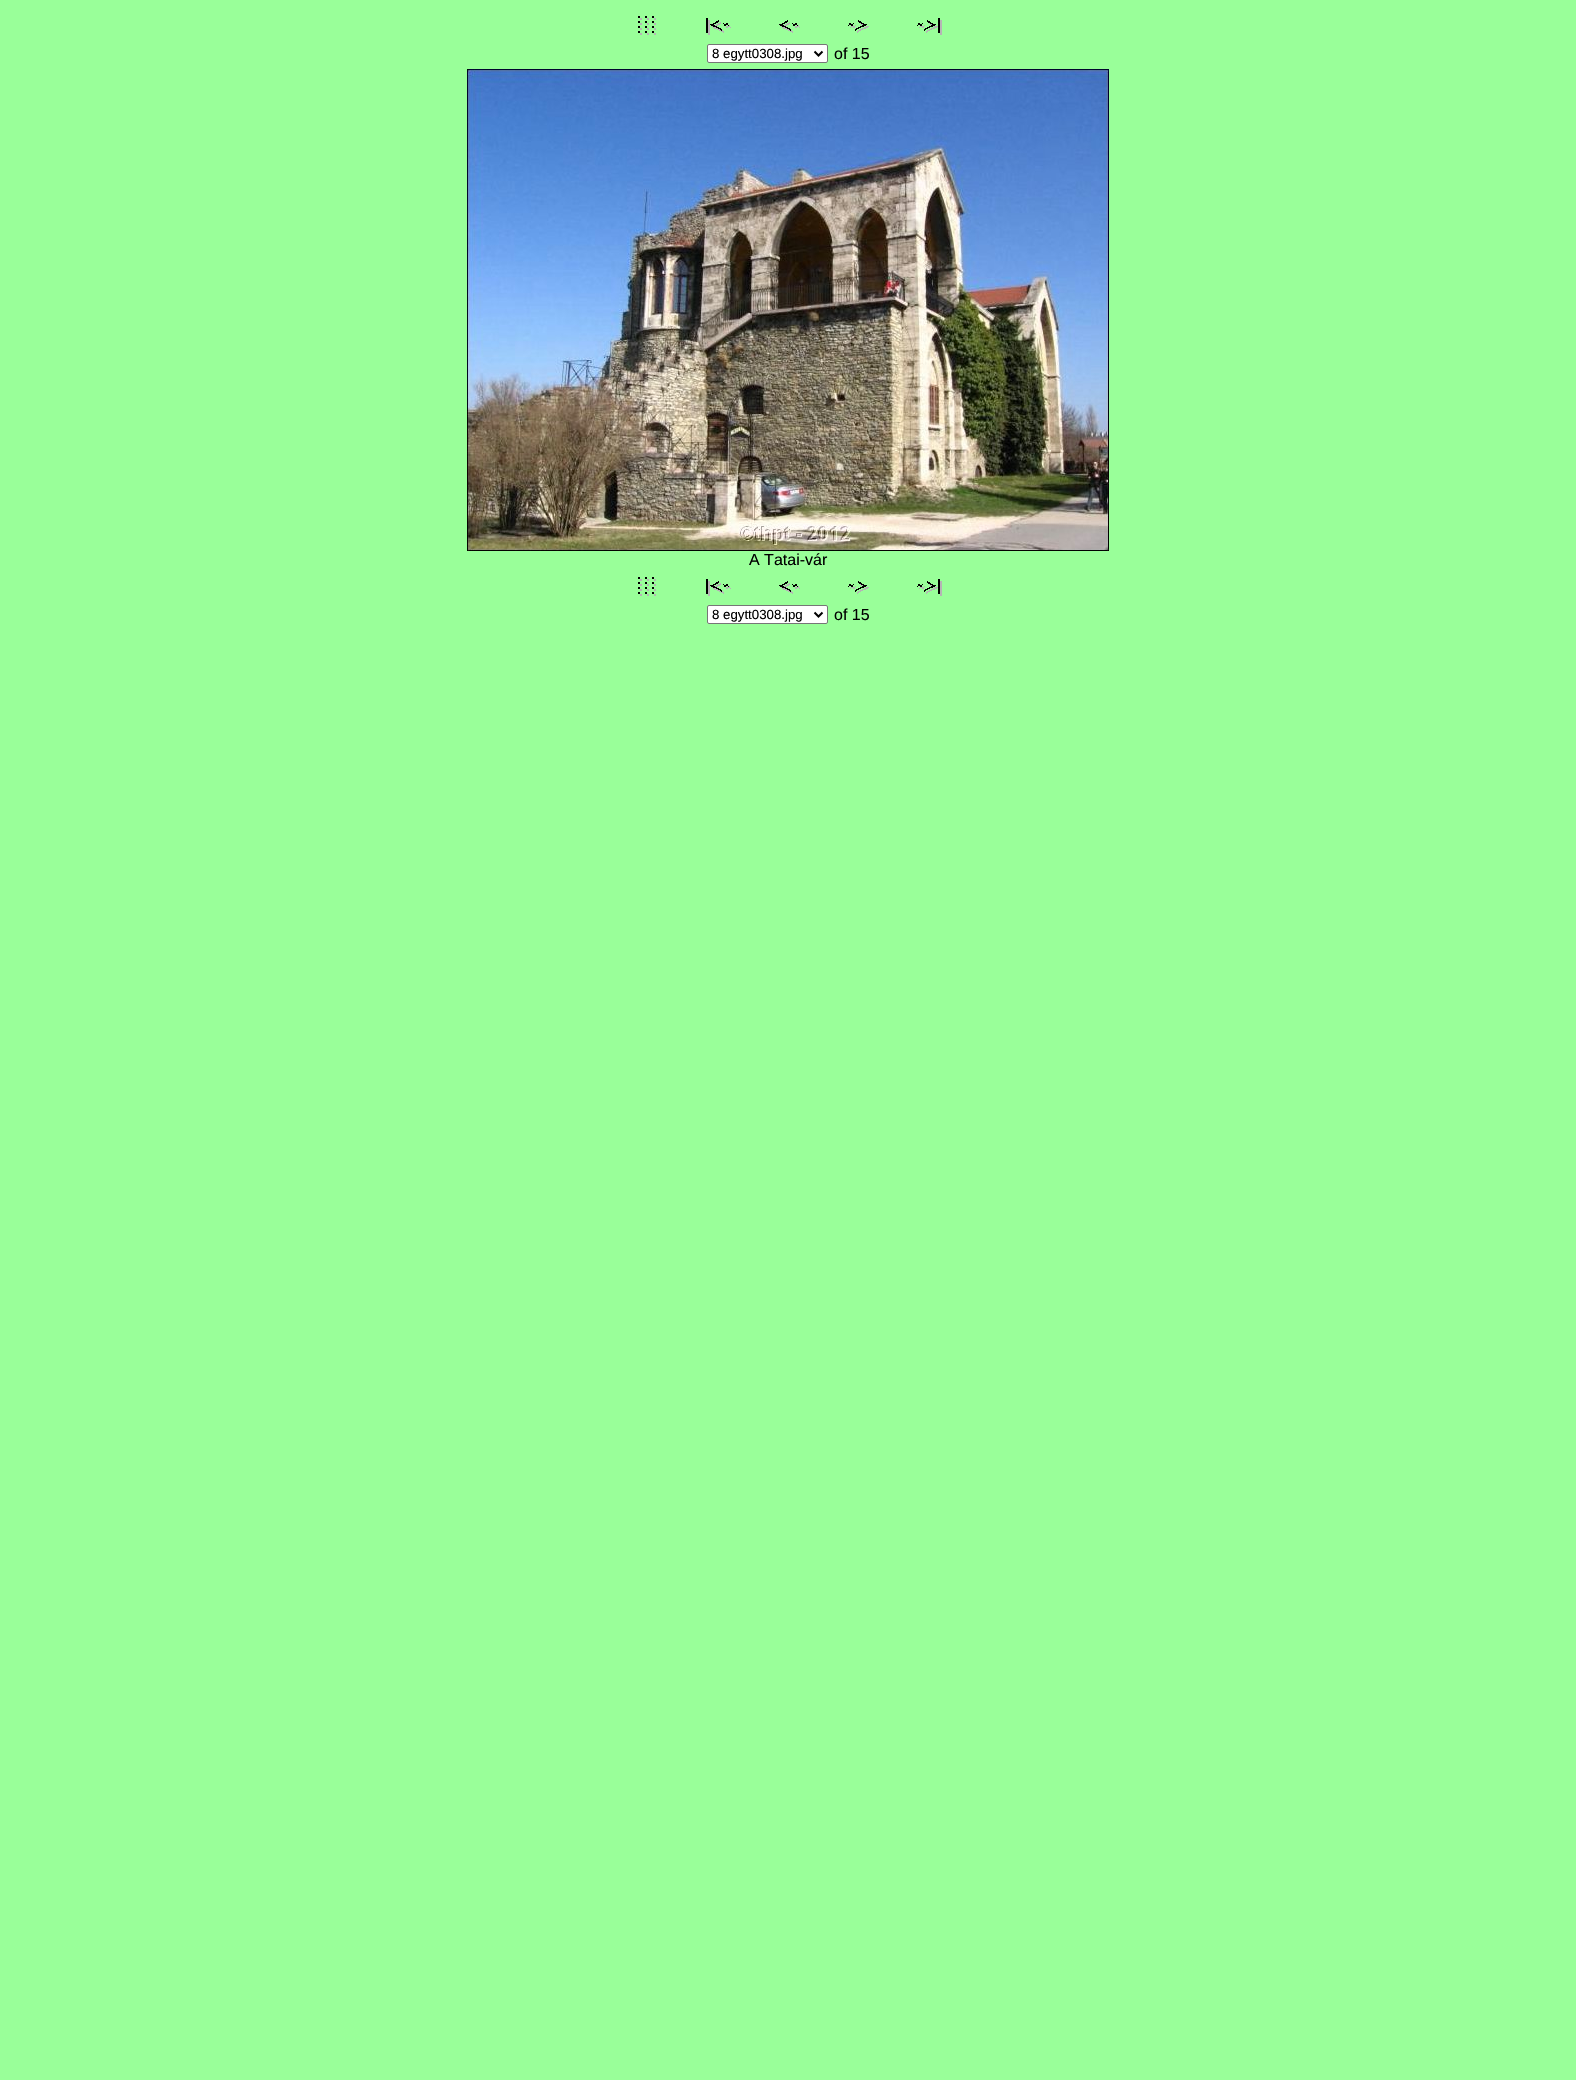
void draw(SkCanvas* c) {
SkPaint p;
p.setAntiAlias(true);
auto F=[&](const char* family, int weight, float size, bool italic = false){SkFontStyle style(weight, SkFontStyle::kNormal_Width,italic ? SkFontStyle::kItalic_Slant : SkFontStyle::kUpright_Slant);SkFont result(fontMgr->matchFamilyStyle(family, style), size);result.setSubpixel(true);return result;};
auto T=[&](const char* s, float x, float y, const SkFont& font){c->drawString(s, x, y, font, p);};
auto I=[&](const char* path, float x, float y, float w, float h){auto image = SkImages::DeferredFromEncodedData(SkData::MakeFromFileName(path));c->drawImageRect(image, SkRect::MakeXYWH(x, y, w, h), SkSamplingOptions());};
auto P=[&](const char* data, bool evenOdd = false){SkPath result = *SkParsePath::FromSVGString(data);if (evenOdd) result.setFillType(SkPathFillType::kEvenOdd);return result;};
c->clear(0xff99ff99);
I("1.png",638,16,18,19);
I("2.png",706,18,25,17);
I("3.png",779,20,21,13);
I("4.png",848,20,21,13);
I("5.png",917,18,25,17);
p.setColor(0xffffffff);
c->drawRoundRect(SkRect::MakeXYWH(707.5,44.5,120,18),1.5,1.5,p);
p.setStroke(true);
p.setStrokeWidth(1);
p.setColor(0xff767676);
c->drawRoundRect(SkRect::MakeXYWH(707.5,44.5,120,18),1.5,1.5,p);
p.setStrokeWidth(2);
p.setColor(0xff000000);
c->drawPath(P("M814.5 51.5l4 4l4-4"),p);
auto f1 = F("Liberation Sans",400,13.25);
p.setStroke(false);
T("8 egytt0308.jpg",712,58,f1);
auto f2 = F("Liberation Sans",400,16);
T("of 15",834,59,f2);
I("6.png",467,69,642,482);
T("A Tatai-vár",749,565,f2);
I("1.png",638,577,18,19);
I("2.png",706,579,25,17);
I("3.png",779,581,21,13);
I("4.png",848,581,21,13);
I("5.png",917,579,25,17);
p.setColor(0xffffffff);
c->drawRoundRect(SkRect::MakeXYWH(707.5,605.5,120,18),1.5,1.5,p);
p.setStroke(true);
p.setStrokeWidth(1);
p.setColor(0xff767676);
c->drawRoundRect(SkRect::MakeXYWH(707.5,605.5,120,18),1.5,1.5,p);
p.setStrokeWidth(2);
p.setColor(0xff000000);
c->drawPath(P("M814.5 612.5l4 4l4-4"),p);
p.setStroke(false);
T("8 egytt0308.jpg",712,619,f1);
T("of 15",834,620,f2);
}
